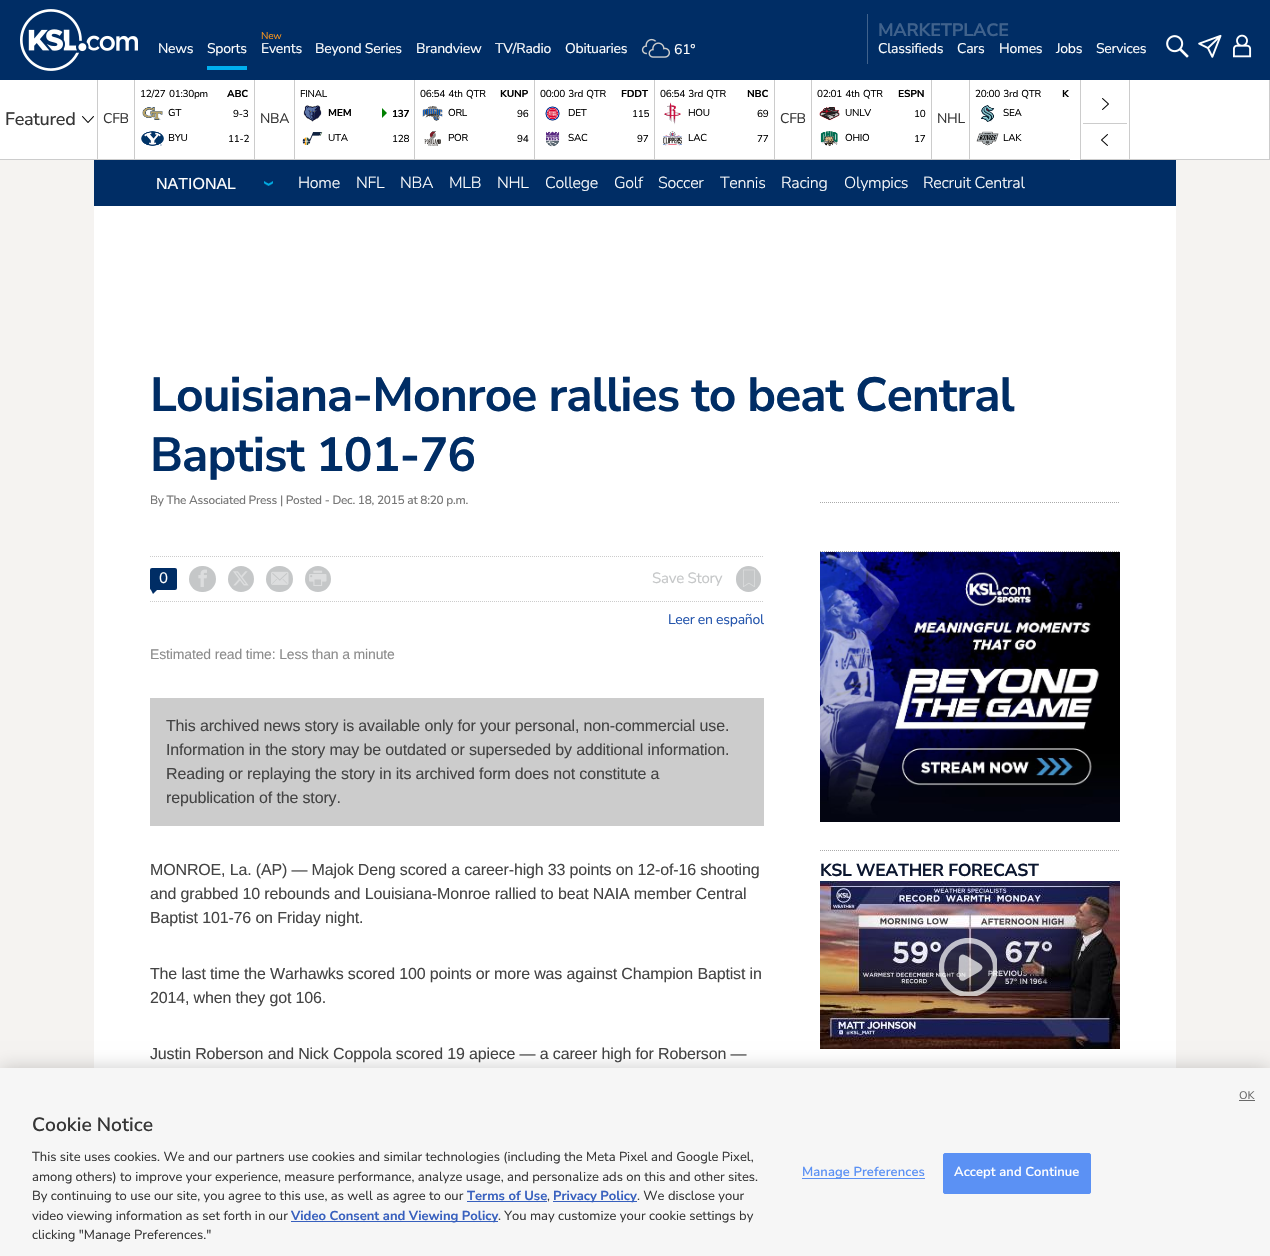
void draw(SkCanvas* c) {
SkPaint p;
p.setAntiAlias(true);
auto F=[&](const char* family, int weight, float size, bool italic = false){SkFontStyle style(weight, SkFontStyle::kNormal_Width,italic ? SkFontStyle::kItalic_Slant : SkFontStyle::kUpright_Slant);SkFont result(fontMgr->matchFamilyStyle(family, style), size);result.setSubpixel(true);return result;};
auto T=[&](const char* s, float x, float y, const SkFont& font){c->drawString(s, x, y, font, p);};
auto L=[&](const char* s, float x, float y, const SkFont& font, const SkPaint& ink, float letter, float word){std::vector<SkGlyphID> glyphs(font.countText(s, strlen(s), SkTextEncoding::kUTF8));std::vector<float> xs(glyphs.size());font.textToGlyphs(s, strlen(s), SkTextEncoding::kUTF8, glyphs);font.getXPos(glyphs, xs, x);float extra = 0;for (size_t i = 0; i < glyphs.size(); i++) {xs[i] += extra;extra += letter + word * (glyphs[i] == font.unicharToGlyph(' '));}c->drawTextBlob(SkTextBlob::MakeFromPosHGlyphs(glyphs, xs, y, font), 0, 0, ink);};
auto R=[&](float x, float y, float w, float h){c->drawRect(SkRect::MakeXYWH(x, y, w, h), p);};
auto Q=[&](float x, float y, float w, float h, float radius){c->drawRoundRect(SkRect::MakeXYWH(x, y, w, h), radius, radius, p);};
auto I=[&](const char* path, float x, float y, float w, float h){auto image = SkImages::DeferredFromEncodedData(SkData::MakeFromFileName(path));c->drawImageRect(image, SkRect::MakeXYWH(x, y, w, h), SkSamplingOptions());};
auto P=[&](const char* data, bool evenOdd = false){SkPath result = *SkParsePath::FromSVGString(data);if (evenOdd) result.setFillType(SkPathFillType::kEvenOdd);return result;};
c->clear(0xfff5f3f1);
p.setColor(0xff002d65);
R(0,0,1270,80);
I("1.png",20,9,118,62);
auto f1 = F("Nunito Sans",400,14);
p.setColor(0xffffffff);
L("News",158,53,f1,p,-.25,0);
p.setColor(0xff00afef);
R(207,66,40,4);
p.setColor(0xffffffff);
L("Sports",207,53,f1,p,-.25,0);
auto f2 = F("Nunito Sans",400,10);
p.setColor(0xfff7941d);
L("New",261,39,f2,p,-.25,0);
p.setColor(0xffffffff);
L("Events",261,53,f1,p,-.25,0);
L("Beyond Series",315,53,f1,p,-.25,0);
L("Brandview",416,53,f1,p,-.25,0);
L("TV/Radio",495,53,f1,p,-.25,0);
L("Obituaries",565,53,f1,p,-.25,0);
I("2.png",641,38,29,20);
L("61°",674,54,f1,p,-.25,0);
p.setColor(0xff40628c);
R(867,14,1,50);
auto f3 = F("Nunito Sans",700,18);
L("MARKETPLACE",878,36,f3,p,-.25,0);
p.setColor(0xffffffff);
L("Classifieds",878,53,f1,p,-.25,0);
L("Cars",957,53,f1,p,-.25,0);
L("Homes",999,53,f1,p,-.25,0);
L("Jobs",1056,53,f1,p,-.25,0);
L("Services",1096,53,f1,p,-.25,0);
I("3.png",1166,35,23,23);
I("4.png",1198,34,24,24);
I("5.png",1233,34,19,24);
R(0,80,1269,80);
p.setColor(0xffcccccc);
R(97,80,1,80);
R(0,159,1070,1);
auto f4 = F("Nunito Sans",500,18);
p.setColor(0xff363636);
L("Featured",5,125,f4,p,-.25,0);
I("6.png",82,116,12,7);
p.setColor(0xffcccccc);
R(134,80,1,79);
p.setColor(0xff363636);
L("CFB",103,123,f1,p,-.25,0);
p.setColor(0xffcccccc);
R(254,80,1,79);
p.setColor(0xff000000);
L("12/27 01:30pm",140,97,f2,p,-.25,1);
auto f5 = F("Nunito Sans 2",700,10);
L("ABC",227,97,f5,p,-.25,0);
I("7.png",142,107,21,13);
auto f6 = F("Nunito Sans 2",400,10);
L("GT",168,116,f6,p,-.25,0);
L("9-3",233,117,f2,p,-.25,0);
I("8.png",141,131,23,15);
L("BYU",168,141,f6,p,-.25,0);
L("11-2",228,142,f2,p,-.25,0);
p.setColor(0xffcccccc);
R(294,80,1,79);
p.setColor(0xff363636);
L("NBA",260,123,f1,p,-.25,0);
p.setColor(0xffcccccc);
R(414,80,1,79);
p.setColor(0xff000000);
L("FINAL",300,97,f2,p,-.25,0);
I("9.png",303,105,19,17);
L("MEM",328,116,f5,p,-.25,0);
p.setColor(0xff008000);
c->drawPath(P("M382 118v-10l5 5z"),p);
auto f7 = F("Nunito Sans",700,10);
p.setColor(0xff000000);
L("137",392,117,f7,p,-.25,0);
I("10.png",302,132,21,13);
L("UTA",328,141,f2,p,-.25,0);
L("128",392,142,f2,p,-.25,0);
p.setColor(0xffcccccc);
R(534,80,1,79);
p.setColor(0xff000000);
L("06:54 4th QTR",420,97,f2,p,-.25,1);
L("KUNP",500,97,f5,p,-.25,0);
I("11.png",422,106,21,15);
L("ORL",448,116,f2,p,-.25,0);
L("96",517,117,f2,p,-.25,0);
I("12.png",424,131,17,15);
L("POR",448,141,f2,p,-.25,0);
L("94",517,142,f2,p,-.25,0);
p.setColor(0xffcccccc);
R(654,80,1,79);
p.setColor(0xff000000);
L("00:00 3rd QTR",540,97,f2,p,-.25,1);
L("FDDT",621,97,f5,p,-.25,0);
I("13.png",545,106,15,15);
L("DET",568,116,f2,p,-.25,0);
L("115",632,117,f2,p,-.25,0);
I("14.png",546,131,14,16);
L("SAC",568,141,f2,p,-.25,0);
L("97",637,142,f2,p,-.25,0);
p.setColor(0xffcccccc);
R(774,80,1,79);
p.setColor(0xff000000);
L("06:54 3rd QTR",660,97,f2,p,-.25,1);
L("NBC",747,97,f5,p,-.25,0);
I("15.png",664,102,17,23);
L("HOU",688,116,f2,p,-.25,0);
L("69",757,117,f2,p,-.25,0);
I("16.png",663,131,19,15);
L("LAC",688,141,f2,p,-.25,0);
L("77",757,142,f2,p,-.25,0);
p.setColor(0xffcccccc);
R(811,80,1,79);
p.setColor(0xff363636);
L("CFB",780,123,f1,p,-.25,0);
p.setColor(0xffcccccc);
R(931,80,1,79);
p.setColor(0xff000000);
L("02:01 4th QTR",817,97,f2,p,-.25,1);
L("ESPN",898,97,f5,p,-.25,0);
I("17.png",819,107,21,14);
L("UNLV",845,116,f2,p,-.25,0);
L("10",914,117,f2,p,-.25,0);
I("18.png",820,131,18,15);
L("OHIO",845,141,f2,p,-.25,0);
L("17",914,142,f2,p,-.25,0);
p.setColor(0xffcccccc);
R(969,80,1,79);
p.setColor(0xff363636);
L("NHL",937,123,f1,p,-.25,0);
p.setColor(0xff000000);
L("20:00 3rd QTR",975,97,f2,p,-.25,1);
L("K",1062,97,f5,p,-.25,0);
I("19.png",981,105,14,17);
L("SEA",1003,116,f2,p,-.25,0);
I("20.png",976,131,23,15);
L("LAK",1003,141,f2,p,-.25,0);
p.setColor(0xffcccccc);
R(1129,80,1,80);
R(1080,159,50,1);
R(1080,80,1,80);
I("21.png",1102,98,7,12);
R(1083,123,44,1);
I("22.png",1101,134,7,12);
R(1269,80,1,80);
R(1130,159,140,1);
p.setColor(0xffffffff);
R(94,206,1082,862);
p.setColor(0xff002d65);
R(94,160,1082,46);
I("23.png",264,181,9,5);
auto f8 = F("Liberation Sans",400,16);
p.setColor(0xffffffff);
T("NATIONAL",156,189,f8);
auto f9 = F("Nunito Sans",300,16);
L("Home",298,188,f9,p,-.25,0);
L("NFL",356,188,f9,p,-.25,0);
L("NBA",400,188,f9,p,-.25,0);
L("MLB",449,188,f9,p,-.25,0);
L("NHL",497,188,f9,p,-.25,0);
L("College",545,188,f9,p,-.25,0);
L("Golf",614,188,f9,p,-.25,0);
L("Soccer",658,188,f9,p,-.25,0);
L("Tennis",720,188,f9,p,-.25,0);
L("Racing",781,188,f9,p,-.25,0);
L("Olympics",844,188,f9,p,-.25,0);
L("Recruit Central",923,188,f9,p,-.25,0);
auto f10 = F("Nunito Sans",700,48);
p.setColor(0xff002d65);
L("Louisiana-Monroe rallies to beat Central",150,411,f10,p,-.95,0);
L("Baptist 101-76",150,471,f10,p,-.95,0);
auto f11 = F("Nunito Sans",500,11.9);
p.setColor(0xff767676);
L("By The Associated Press | Posted - Dec. 18, 2015 at 8:20 p.m.",150,504,f11,p,-.25,0);
p.setStroke(true);
p.setStrokeWidth(1);
p.setColor(0xffaaaaaa);
p.setPathEffect(SkDashPathEffect::Make({{1,1}}, 0));
c->drawPath(P("M820 502.5h300"),p);
p.setPathEffect(nullptr);
p.setColor(0xffcccccc);
p.setPathEffect(SkDashPathEffect::Make({{1,1}}, 0));
c->drawPath(P("M150 556.5h614"),p);
p.setPathEffect(nullptr);
p.setStroke(false);
p.setColor(0xff002d65);
Q(150,568,27,22,2);
auto f12 = F("Nunito Sans",400,15);
p.setColor(0xffffffff);
L("0",159,583,f12,p,-.25,0);
p.setColor(0xff002d65);
c->drawPath(P("M150 588h9l-6 6z"),p);
p.setColor(0xffc5c7c8);
Q(189,566,27,26,13);
I("24.png",198,569,9,18);
c->drawCircle(241,579,13,p);
I("25.png",233,571,16,15);
Q(266,566,27,26,13);
I("26.png",271,571,18,14);
c->drawCircle(318,579,13,p);
I("27.png",309,570,18,16);
L("Save Story",652,583,f12,p,-.25,0);
Q(736,566,25,26,12.5);
I("28.png",743,569,12,18);
p.setStroke(true);
p.setColor(0xffcccccc);
p.setPathEffect(SkDashPathEffect::Make({{1,1}}, 0));
c->drawPath(P("M150 601.5h614"),p);
p.setPathEffect(nullptr);
p.setStroke(false);
p.setColor(0xff2354ac);
L("Leer en español",668,624,f1,p,-.25,0);
auto f13 = F("Liberation Sans",400,14);
p.setColor(0xff8c8c8c);
L("Estimated read time: Less than a minute",150,659,f13,p,-.15,0);
p.setColor(0xffcccccc);
R(150,698,614,128);
p.setColor(0xff444444);
L("This archived news story is available only for your personal, non-commercial use.",166,731,f8,p,-.15,0);
L("Information in the story may be outdated or superseded by additional information.",166,755,f8,p,-.15,0);
L("Reading or replaying the story in its archived form does not constitute a",166,779,f8,p,-.15,0);
L("republication of the story.",166,803,f8,p,-.15,0);
L("MONROE, La. (AP) — Majok Deng scored a career-high 33 points on 12-of-16 shooting",150,875,f8,p,-.15,0);
L("and grabbed 10 rebounds and Louisiana-Monroe rallied to beat NAIA member Central",150,899,f8,p,-.15,0);
L("Baptist 101-76 on Friday night.",150,923,f8,p,-.15,0);
L("The last time the Warhawks scored 100 points or more was against Champion Baptist in",150,979,f8,p,-.15,0);
L("2014, when they got 106.",150,1003,f8,p,-.15,0);
L("Justin Roberson and Nick Coppola scored 19 apiece — a career high for Roberson —",150,1059,f8,p,-.15,0);
p.setStroke(true);
p.setColor(0xffaaaaaa);
p.setPathEffect(SkDashPathEffect::Make({{1,1}}, 0));
c->drawPath(P("M820 551.5h300"),p);
p.setPathEffect(nullptr);
I("29.png",820,552,300,270);
p.setPathEffect(SkDashPathEffect::Make({{1,1}}, 0));
c->drawPath(P("M820 850.5h300"),p);
p.setPathEffect(nullptr);
auto f14 = F("Nunito Sans",700,17.5);
p.setStroke(false);
p.setColor(0xff0b162f);
L("KSL WEATHER FORECAST",820,876,f14,p,-.3,0);
I("30.png",820,881,300,168);
p.setColor(0x33424242);
c->drawCircle(968.5,967.5,24,p);
c->save();
c->clipRect(SkRect::MakeXYWH(939,938,58,58));
p.setStroke(true);
p.setStrokeWidth(5.3);
p.setColor(0xb3ffffff);
c->drawCircle(968.5,967.5,27,p);
c->restore();
p.setStroke(false);
c->drawPath(P("M965.5 955.5c-2.5-2-6-1-6.5 2.5l-.5 14c0 3.5 0 10.5 5.5 8.5l14-8c9-5.5 2.5-8.5-3.5-12l-8.5-5z"),p);
p.setColor(0x33000000);
p.setMaskFilter(SkMaskFilter::MakeBlur(kNormal_SkBlurStyle, 9));
c->drawRect(SkRect::MakeXYWH(0,1068,1270,188),p);
p.setMaskFilter(nullptr);
p.setColor(0xfff6f6f6);
R(0,1068,1270,188);
auto f15 = F("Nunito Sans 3",400,11);
p.setColor(0xff696969);
T("OK",1239,1099,f15);
R(1239,1100,16,1);
auto f16 = F("Nunito Sans",600,19.25);
p.setColor(0xff363636);
T("Cookie Notice",32,1131,f16);
auto f17 = F("Nunito Sans",400,13);
T("This site uses cookies. We and our partners use cookies and similar technologies (including the Meta Pixel and Google Pixel,",32,1161,f17);
T("among others) to improve your experience, measure performance, analyze usage, and personalize ads on this and other sites.",32,1181,f17);
T("By continuing to use our site, you agree to this use, as well as agree to our",32,1200,f17);
auto f18 = F("Nunito Sans",700,13);
p.setColor(0xff3860be);
T("Terms of Use",467,1200,f18);
R(467,1201,80,1);
p.setColor(0xff363636);
T(",",547,1200,f17);
p.setColor(0xff3860be);
R(553,1201,84,1);
T("Privacy Policy",553,1200,f18);
p.setColor(0xff363636);
T(". We disclose your",637,1200,f17);
T("video viewing information as set forth in our",32,1220,f17);
p.setColor(0xff3860be);
R(291,1221,207,1);
T("Video Consent and Viewing Policy",291,1220,f18);
p.setColor(0xff363636);
T(". You may customize your cookie settings by",498,1220,f17);
T("clicking \"Manage Preferences.\"",32,1239,f17);
p.setColor(0xff5b91f4);
R(802,1178,123,1);
auto f19 = F("Nunito Sans",600,13);
L("Manage Preferences",802,1176,f19,p,.1,0);
c->drawRoundRect(SkRect::MakeXYWH(943.5,1153.5,147,40),1.5,1.5,p);
p.setStroke(true);
p.setStrokeWidth(1);
c->drawRoundRect(SkRect::MakeXYWH(943.5,1153.5,147,40),1.5,1.5,p);
p.setStroke(false);
p.setColor(0xffffffff);
L("Accept and Continue",954,1176,f19,p,.1,0);
}
